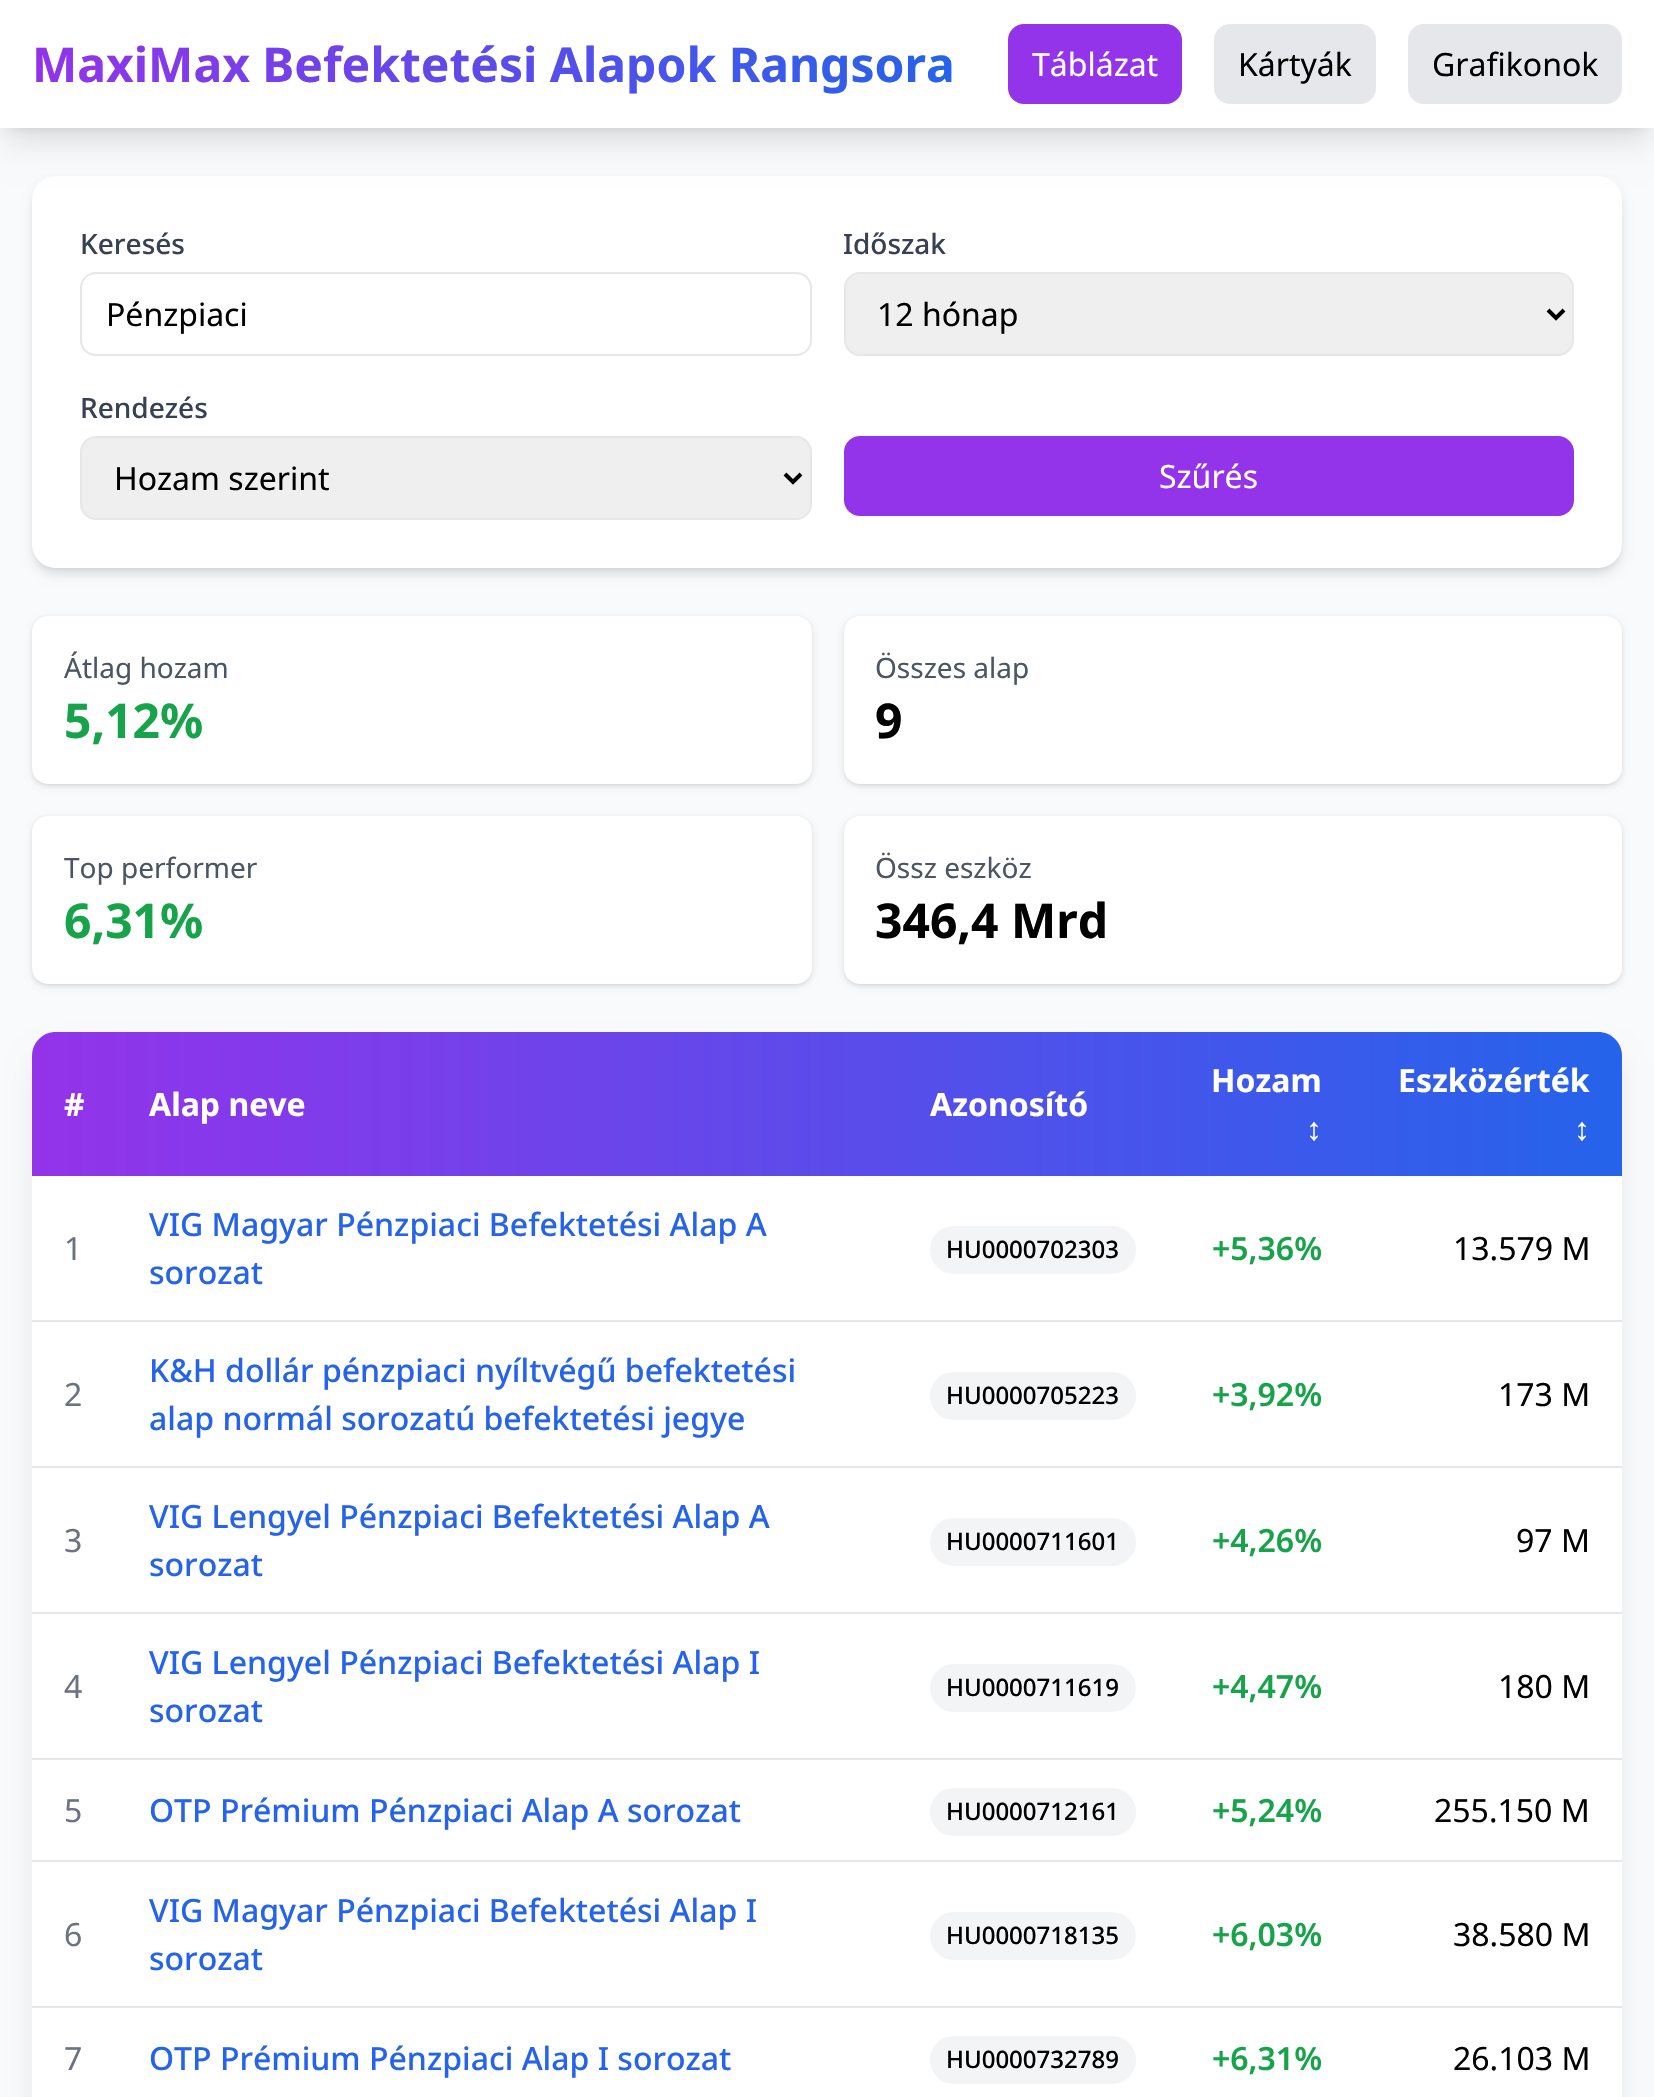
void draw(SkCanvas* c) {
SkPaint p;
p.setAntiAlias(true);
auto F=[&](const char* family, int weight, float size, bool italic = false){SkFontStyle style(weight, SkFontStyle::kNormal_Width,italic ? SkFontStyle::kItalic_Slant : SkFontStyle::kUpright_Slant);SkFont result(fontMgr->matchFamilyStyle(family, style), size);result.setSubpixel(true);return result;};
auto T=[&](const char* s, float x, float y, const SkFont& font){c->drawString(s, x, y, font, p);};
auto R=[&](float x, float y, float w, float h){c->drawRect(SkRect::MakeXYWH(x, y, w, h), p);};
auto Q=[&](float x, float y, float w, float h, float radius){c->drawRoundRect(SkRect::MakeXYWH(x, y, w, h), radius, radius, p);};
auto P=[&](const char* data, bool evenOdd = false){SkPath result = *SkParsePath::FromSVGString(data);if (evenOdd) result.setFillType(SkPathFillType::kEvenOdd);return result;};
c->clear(0xfff9fafb);
p.setColor(0x1a000000);
p.setMaskFilter(SkMaskFilter::MakeBlur(kNormal_SkBlurStyle, 6));
c->drawRect(SkRect::MakeXYWH(8,16,1638,112),p);
p.setMaskFilter(nullptr);
p.setMaskFilter(SkMaskFilter::MakeBlur(kNormal_SkBlurStyle, 4));
c->drawRoundRect(SkRect::MakeXYWH(36,184,1582,384),20,20,p);
p.setMaskFilter(nullptr);
p.setMaskFilter(SkMaskFilter::MakeBlur(kNormal_SkBlurStyle, 6));
c->drawRoundRect(SkRect::MakeXYWH(34,186,1586,388),22,22,p);
p.setMaskFilter(nullptr);
p.setColor(0xffffffff);
Q(32,176,1590,392,24);
p.setColor(0x1a000000);
p.setMaskFilter(SkMaskFilter::MakeBlur(kNormal_SkBlurStyle, 15));
c->drawRect(SkRect::MakeXYWH(6,26,1642,116),p);
p.setMaskFilter(nullptr);
p.setColor(0xffffffff);
R(0,0,1654,128);
auto f1 = F("Noto Sans",700,48);
{
const SkColor colors[] = {0xff9333ea,0xff2563eb};
const float stops[] = {0,1};
const SkPoint ends[] = {{32,64}, {955,64}};
p.setShader(SkGradientShader::MakeLinear(ends, colors, stops, 2, SkTileMode::kClamp));
p.setAlpha(255);
}
T("MaxiMax Befektetési Alapok Rangsora",32,82,f1);
p.setShader(nullptr);
p.setColor(0xff9333ea);
Q(1008,24,174,80,16);
auto f2 = F("Noto Sans",400,32);
p.setColor(0xffffffff);
T("Táblázat",1032,76,f2);
p.setColor(0xffe5e7eb);
Q(1214,24,162,80,16);
p.setColor(0xff000000);
T("Kártyák",1238,76,f2);
p.setColor(0xffe5e7eb);
Q(1408,24,214,80,16);
p.setColor(0xff000000);
T("Grafikonok",1432,76,f2);
auto f3 = F("Noto Sans",500,28);
p.setColor(0xff374151);
T("Keresés",80,254,f3);
p.setStroke(true);
p.setStrokeWidth(2);
p.setColor(0xffe5e7eb);
c->drawRoundRect(SkRect::MakeXYWH(81,273,730,82),15,15,p);
p.setStroke(false);
p.setColor(0xff000000);
T("Pénzpiaci",106,326,f2);
p.setColor(0xff374151);
T("Időszak",843,254,f3);
p.setColor(0xffefefef);
c->drawRoundRect(SkRect::MakeXYWH(845,273,728,82),15,15,p);
p.setStroke(true);
p.setColor(0xffe5e7eb);
c->drawRoundRect(SkRect::MakeXYWH(845,273,728,82),15,15,p);
p.setStrokeWidth(4);
p.setColor(0xff000000);
c->drawPath(P("M1548 310l8 8l8-8"),p);
p.setStroke(false);
T("12 hónap",877,326,f2);
p.setColor(0xff374151);
T("Rendezés",80,418,f3);
p.setColor(0xffefefef);
c->drawRoundRect(SkRect::MakeXYWH(81,437,730,82),15,15,p);
p.setStroke(true);
p.setStrokeWidth(2);
p.setColor(0xffe5e7eb);
c->drawRoundRect(SkRect::MakeXYWH(81,437,730,82),15,15,p);
p.setStrokeWidth(4);
p.setColor(0xff000000);
c->drawPath(P("M785 474l8 8l8-8"),p);
p.setStroke(false);
T("Hozam szerint",114,490,f2);
p.setColor(0xff9333ea);
Q(844,436,730,80,16);
p.setColor(0xffffffff);
T("Szűrés",1159,488,f2);
p.setColor(0x1a000000);
p.setMaskFilter(SkMaskFilter::MakeBlur(kNormal_SkBlurStyle, 2));
c->drawRoundRect(SkRect::MakeXYWH(34,620,776,164),14,14,p);
p.setMaskFilter(nullptr);
p.setMaskFilter(SkMaskFilter::MakeBlur(kNormal_SkBlurStyle, 3));
c->drawRoundRect(SkRect::MakeXYWH(32,618,780,168),16,16,p);
p.setMaskFilter(nullptr);
p.setColor(0xffffffff);
Q(32,616,780,168,16);
auto f4 = F("Noto Sans",400,28);
p.setColor(0xff4b5563);
T("Átlag hozam",64,678,f4);
p.setColor(0xff16a34a);
T("5,12%",64,738,f1);
p.setColor(0x1a000000);
p.setMaskFilter(SkMaskFilter::MakeBlur(kNormal_SkBlurStyle, 2));
c->drawRoundRect(SkRect::MakeXYWH(846,620,774,164),14,14,p);
p.setMaskFilter(nullptr);
p.setMaskFilter(SkMaskFilter::MakeBlur(kNormal_SkBlurStyle, 3));
c->drawRoundRect(SkRect::MakeXYWH(844,618,778,168),16,16,p);
p.setMaskFilter(nullptr);
p.setColor(0xffffffff);
Q(844,616,778,168,16);
p.setColor(0xff4b5563);
T("Összes alap",875,678,f4);
p.setColor(0xff000000);
T("9",875,738,f1);
p.setColor(0x1a000000);
p.setMaskFilter(SkMaskFilter::MakeBlur(kNormal_SkBlurStyle, 2));
c->drawRoundRect(SkRect::MakeXYWH(34,820,776,164),14,14,p);
p.setMaskFilter(nullptr);
p.setMaskFilter(SkMaskFilter::MakeBlur(kNormal_SkBlurStyle, 3));
c->drawRoundRect(SkRect::MakeXYWH(32,818,780,168),16,16,p);
p.setMaskFilter(nullptr);
p.setColor(0xffffffff);
Q(32,816,780,168,16);
p.setColor(0xff4b5563);
T("Top performer",64,878,f4);
p.setColor(0xff16a34a);
T("6,31%",64,938,f1);
p.setColor(0x1a000000);
p.setMaskFilter(SkMaskFilter::MakeBlur(kNormal_SkBlurStyle, 2));
c->drawRoundRect(SkRect::MakeXYWH(846,820,774,164),14,14,p);
p.setMaskFilter(nullptr);
p.setMaskFilter(SkMaskFilter::MakeBlur(kNormal_SkBlurStyle, 3));
c->drawRoundRect(SkRect::MakeXYWH(844,818,778,168),16,16,p);
p.setMaskFilter(nullptr);
p.setColor(0xffffffff);
Q(844,816,778,168,16);
p.setColor(0xff4b5563);
T("Össz eszköz",875,878,f4);
p.setColor(0xff000000);
T("346,4 Mrd",875,938,f1);
p.setColor(0x1a000000);
p.setMaskFilter(SkMaskFilter::MakeBlur(kNormal_SkBlurStyle, 15));
c->drawRoundRect(SkRect::MakeXYWH(38,1058,1578,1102),18,18,p);
p.setMaskFilter(nullptr);
p.setColor(0xffffffff);
Q(32,1032,1590,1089,24);
{
const SkColor colors[] = {0xff9333ea,0xff2563eb};
const float stops[] = {0,1};
const SkPoint ends[] = {{32,1104}, {1622,1104}};
p.setShader(SkGradientShader::MakeLinear(ends, colors, stops, 2, SkTileMode::kClamp));
p.setAlpha(255);
}
c->drawPath(P("M56 1032h1542c13.5 0 24 10.5 24 24v120h-1590v-120c0-13.5 10.5-24 24-24z"),p);
auto f5 = F("Noto Sans",700,32);
p.setShader(nullptr);
p.setColor(0xffffffff);
T("#",64,1116,f5);
T("Alap neve",149,1116,f5);
T("Azonosító",930,1116,f5);
T("Hozam",1211,1092,f5);
auto f6 = F("Liberation Sans",700,32);
T("↕",1306,1140,f6);
T("Eszközérték",1398,1092,f5);
T("↕",1574,1140,f6);
p.setColor(0xffe5e7eb);
R(32,1320,1590,2);
p.setColor(0xff6b7280);
T("1",64,1260,f2);
auto f7 = F("Noto Sans",500,32);
p.setColor(0xff2563eb);
T("VIG Magyar Pénzpiaci Befektetési Alap A",149,1236,f7);
T("sorozat",149,1284,f7);
p.setColor(0xfff3f4f6);
Q(930,1226,206,48,24);
auto f8 = F("Noto Sans",500,24);
p.setColor(0xff000000);
T("HU0000702303",946,1258,f8);
auto f9 = F("Noto Sans",600,32);
p.setColor(0xff16a34a);
T("+5,36%",1212,1260,f9);
p.setColor(0xff000000);
T("13.579 M",1453,1260,f2);
p.setColor(0xffe5e7eb);
R(32,1466,1590,2);
p.setColor(0xff6b7280);
T("2",64,1406,f2);
p.setColor(0xff2563eb);
T("K&H dollár pénzpiaci nyíltvégű befektetési",149,1382,f7);
T("alap normál sorozatú befektetési jegye",149,1430,f7);
p.setColor(0xfff3f4f6);
Q(930,1372,206,48,24);
p.setColor(0xff000000);
T("HU0000705223",946,1404,f8);
p.setColor(0xff16a34a);
T("+3,92%",1212,1406,f9);
p.setColor(0xff000000);
T("173 M",1498,1406,f2);
p.setColor(0xffe5e7eb);
R(32,1612,1590,2);
p.setColor(0xff6b7280);
T("3",64,1552,f2);
p.setColor(0xff2563eb);
T("VIG Lengyel Pénzpiaci Befektetési Alap A",149,1528,f7);
T("sorozat",149,1576,f7);
p.setColor(0xfff3f4f6);
Q(930,1518,206,48,24);
p.setColor(0xff000000);
T("HU0000711601",946,1550,f8);
p.setColor(0xff16a34a);
T("+4,26%",1212,1552,f9);
p.setColor(0xff000000);
T("97 M",1516,1552,f2);
p.setColor(0xffe5e7eb);
R(32,1758,1590,2);
p.setColor(0xff6b7280);
T("4",64,1698,f2);
p.setColor(0xff2563eb);
T("VIG Lengyel Pénzpiaci Befektetési Alap I",149,1674,f7);
T("sorozat",149,1722,f7);
p.setColor(0xfff3f4f6);
Q(930,1664,206,48,24);
p.setColor(0xff000000);
T("HU0000711619",946,1696,f8);
p.setColor(0xff16a34a);
T("+4,47%",1212,1698,f9);
p.setColor(0xff000000);
T("180 M",1498,1698,f2);
p.setColor(0xffe5e7eb);
R(32,1860,1590,2);
p.setColor(0xff6b7280);
T("5",64,1822,f2);
p.setColor(0xff2563eb);
T("OTP Prémium Pénzpiaci Alap A sorozat",149,1822,f7);
p.setColor(0xfff3f4f6);
Q(930,1788,206,48,24);
p.setColor(0xff000000);
T("HU0000712161",946,1820,f8);
p.setColor(0xff16a34a);
T("+5,24%",1212,1822,f9);
p.setColor(0xff000000);
T("255.150 M",1434,1822,f2);
p.setColor(0xffe5e7eb);
R(32,2006,1590,2);
p.setColor(0xff6b7280);
T("6",64,1946,f2);
p.setColor(0xff2563eb);
T("VIG Magyar Pénzpiaci Befektetési Alap I",149,1922,f7);
T("sorozat",149,1970,f7);
p.setColor(0xfff3f4f6);
Q(930,1912,206,48,24);
p.setColor(0xff000000);
T("HU0000718135",946,1944,f8);
p.setColor(0xff16a34a);
T("+6,03%",1212,1946,f9);
p.setColor(0xff000000);
T("38.580 M",1453,1946,f2);
p.setColor(0xff6b7280);
T("7",64,2070,f2);
p.setColor(0xff2563eb);
T("OTP Prémium Pénzpiaci Alap I sorozat",149,2070,f7);
p.setColor(0xfff3f4f6);
Q(930,2036,206,48,24);
p.setColor(0xff000000);
T("HU0000732789",946,2068,f8);
p.setColor(0xff16a34a);
T("+6,31%",1212,2070,f9);
p.setColor(0xff000000);
T("26.103 M",1453,2070,f2);
}
